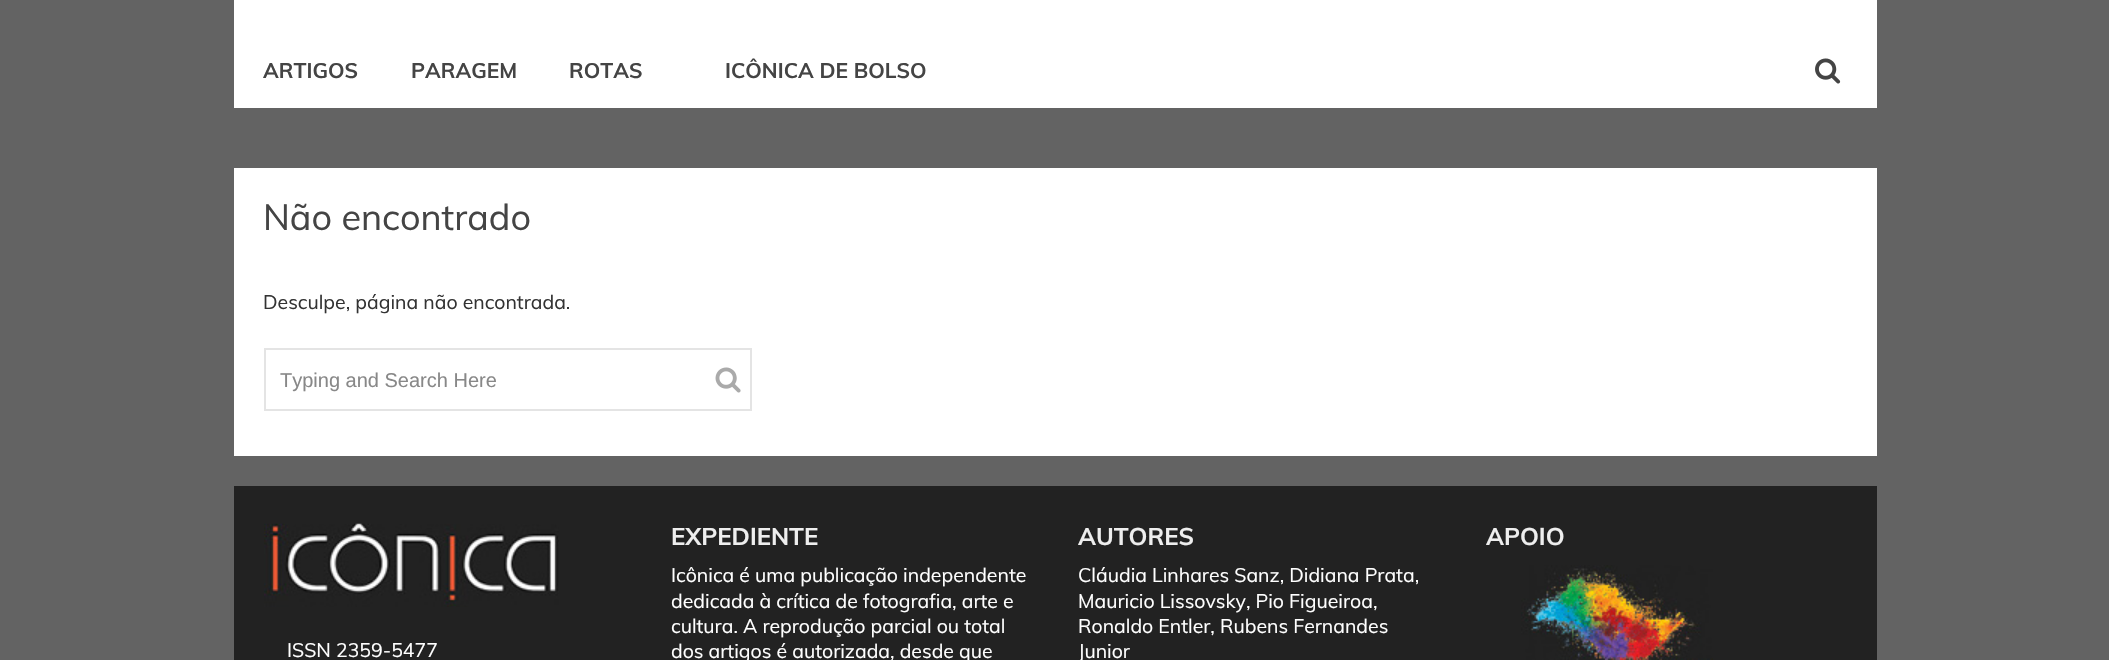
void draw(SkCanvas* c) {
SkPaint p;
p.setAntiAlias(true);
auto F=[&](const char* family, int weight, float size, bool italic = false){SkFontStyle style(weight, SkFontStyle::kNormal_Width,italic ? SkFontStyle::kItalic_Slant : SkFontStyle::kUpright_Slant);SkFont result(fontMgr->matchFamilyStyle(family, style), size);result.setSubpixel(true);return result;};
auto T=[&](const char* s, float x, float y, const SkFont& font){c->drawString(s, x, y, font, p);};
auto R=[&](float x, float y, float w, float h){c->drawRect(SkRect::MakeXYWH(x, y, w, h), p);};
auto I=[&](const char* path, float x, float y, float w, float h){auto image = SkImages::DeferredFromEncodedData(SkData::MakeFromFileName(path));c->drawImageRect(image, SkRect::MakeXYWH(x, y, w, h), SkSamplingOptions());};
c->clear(0xff636363);
p.setColor(0xffffffff);
R(234,0,1643,108);
auto f1 = F("Muli",700,21);
p.setColor(0xff444444);
T("ARTIGOS",263,78,f1);
T("PARAGEM",411,78,f1);
T("ROTAS",569,78,f1);
T("ICÔNICA DE BOLSO",725,78,f1);
I("1.png",1815,58,26,26);
p.setColor(0xffffffff);
R(234,168,1643,288);
auto f2 = F("Muli",400,36);
p.setColor(0xff444444);
T("Não encontrado",263,230,f2);
auto f3 = F("Muli",400,19.5);
p.setColor(0xff333333);
T("Desculpe, página não encontrada.",263,309,f3);
p.setStroke(true);
p.setStrokeWidth(2);
p.setColor(0xffe4e4e4);
c->drawRect(SkRect::MakeXYWH(265,349,486,61),p);
auto f4 = F("Liberation Sans",400,20);
p.setStroke(false);
p.setColor(0xff888888);
T("Typing and Search Here",280,387,f4);
I("2.png",715,367,26,26);
p.setColor(0xff222222);
R(234,486,1643,174);
auto f5 = F("Muli",700,24);
p.setColor(0xffeeeeee);
T("EXPEDIENTE",671,545,f5);
p.setColor(0xffffffff);
T("Icônica é uma publicação independente",671,582,f3);
T("dedicada à crítica de fotografia, arte e",671,608,f3);
T("cultura. A reprodução parcial ou total",671,633,f3);
T("dos artigos é autorizada, desde que",671,658,f3);
p.setColor(0xffeeeeee);
T("AUTORES",1078,545,f5);
p.setColor(0xffffffff);
T("Cláudia Linhares Sanz, Didiana Prata,",1078,582,f3);
T("Mauricio Lissovsky, Pio Figueiroa,",1078,608,f3);
T("Ronaldo Entler, Rubens Fernandes",1078,633,f3);
T("Junior",1078,658,f3);
p.setColor(0xffeeeeee);
T("APOIO",1486,545,f5);
I("3.png",1521,565,192,95);
I("4.png",264,523,295,84);
p.setColor(0xffffffff);
T("ISSN 2359-5477",287,657,f3);
}
